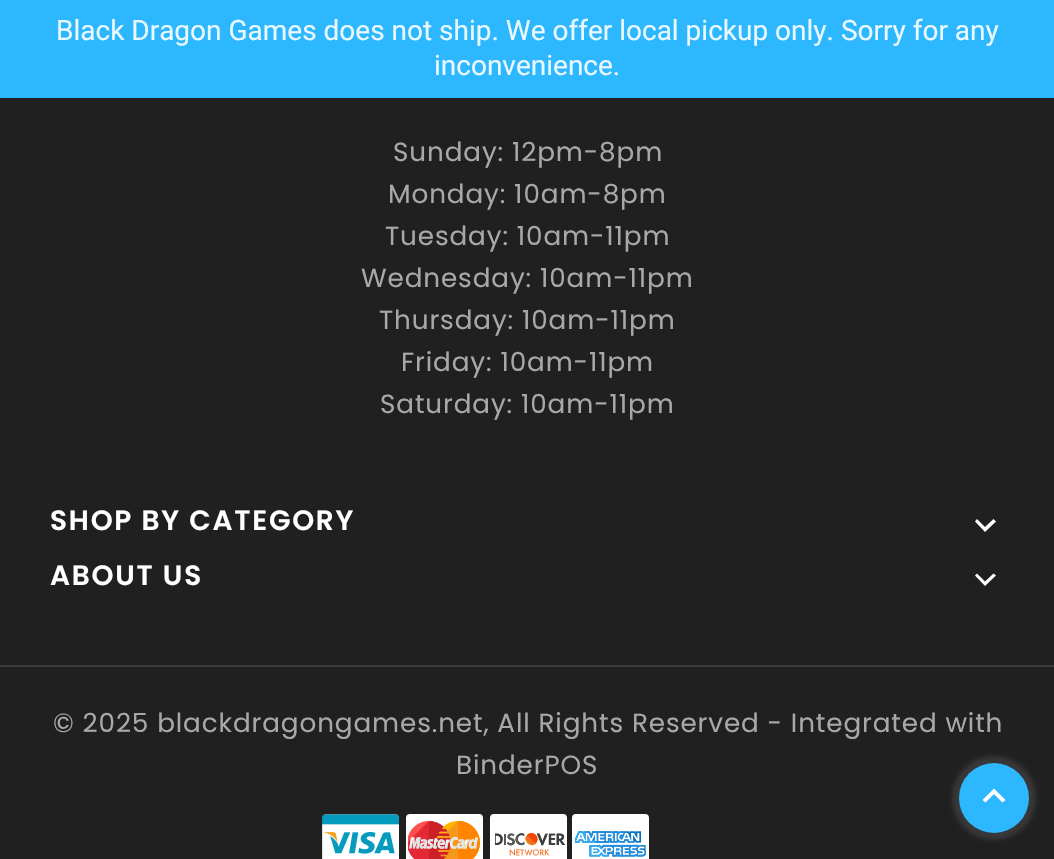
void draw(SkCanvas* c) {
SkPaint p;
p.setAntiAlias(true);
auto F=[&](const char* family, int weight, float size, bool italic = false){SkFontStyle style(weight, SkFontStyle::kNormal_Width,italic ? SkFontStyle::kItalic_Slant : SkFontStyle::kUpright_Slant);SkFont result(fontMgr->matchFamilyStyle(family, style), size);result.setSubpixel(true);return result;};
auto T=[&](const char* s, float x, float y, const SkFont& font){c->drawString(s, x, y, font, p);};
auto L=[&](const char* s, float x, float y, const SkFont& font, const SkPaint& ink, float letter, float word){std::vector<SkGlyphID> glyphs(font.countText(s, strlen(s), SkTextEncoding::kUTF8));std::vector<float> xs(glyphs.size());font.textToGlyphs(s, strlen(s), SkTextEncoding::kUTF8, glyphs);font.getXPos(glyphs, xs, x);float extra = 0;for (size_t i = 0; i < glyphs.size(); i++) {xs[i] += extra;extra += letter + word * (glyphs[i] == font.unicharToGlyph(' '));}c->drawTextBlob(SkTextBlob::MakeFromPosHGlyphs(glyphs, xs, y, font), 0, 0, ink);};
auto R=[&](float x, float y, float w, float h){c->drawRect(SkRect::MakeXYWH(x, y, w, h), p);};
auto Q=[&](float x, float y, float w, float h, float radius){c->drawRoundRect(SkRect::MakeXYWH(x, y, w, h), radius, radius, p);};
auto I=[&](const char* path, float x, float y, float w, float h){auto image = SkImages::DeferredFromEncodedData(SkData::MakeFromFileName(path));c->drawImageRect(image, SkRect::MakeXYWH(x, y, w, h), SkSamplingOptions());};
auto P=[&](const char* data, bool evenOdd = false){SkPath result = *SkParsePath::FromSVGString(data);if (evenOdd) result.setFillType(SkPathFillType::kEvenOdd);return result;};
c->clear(0xff202020);
p.setColor(0xff2db7ff);
R(0,0,1054,98);
auto f1 = F("Roboto",400,28);
p.setColor(0xffeaf8ff);
T("Black Dragon Games does not ship. We offer local pickup only. Sorry for any",56,40,f1);
T("inconvenience.",434,75,f1);
auto f2 = F("Poppins",400,26.25);
p.setColor(0xffa8a8a8);
L("Sunday: 12pm-8pm",393,161,f2,p,.88,0);
L("Monday: 10am-8pm",388,203,f2,p,.88,0);
L("Tuesday: 10am-11pm",385,245,f2,p,.88,0);
L("Wednesday: 10am-11pm",361,287,f2,p,.88,0);
L("Thursday: 10am-11pm",379,329,f2,p,.88,0);
L("Friday: 10am-11pm",401,371,f2,p,.88,0);
L("Saturday: 10am-11pm",380,413,f2,p,.88,0);
auto f3 = F("Poppins",600,28);
p.setColor(0xffffffff);
L("SHOP BY CATEGORY",50,530,f3,p,1.75,0);
c->drawPath(P("M977 519l8 8l8.5-8l2.5 2.5l-11 10.5l-10-10.5z"),p);
L("ABOUT US",50,585,f3,p,1.75,0);
c->drawPath(P("M977 573.5l8 8l8.5-8l2.5 2l-11 10.5l-10-10.5z"),p);
p.setColor(0xff3b3b3b);
R(0,665,1054,2);
p.setColor(0xffa8a8a8);
L("© 2025 blackdragongames.net, All Rights Reserved - Integrated with",53,732,f2,p,.88,0);
L("BinderPOS",456,774,f2,p,.88,0);
I("1.png",322,814,77,45);
p.setColor(0xffffffff);
Q(406,814,77,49,4);
I("2.png",408,820,72,39);
Q(490,814,77,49,4);
I("3.png",495,833,70,23);
Q(572,814,77,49,4);
I("4.png",575,831,72,26);
p.setColor(0x1affffff);
p.setMaskFilter(SkMaskFilter::MakeBlur(kNormal_SkBlurStyle, 2));
c->drawRoundRect(SkRect::MakeXYWH(952,756,84,84),42,42,p);
p.setMaskFilter(nullptr);
p.setColor(0xff2db7ff);
c->drawCircle(994,798,35,p);
p.setColor(0xffffffff);
c->drawPath(P("M994 788.5l11.5 11.5l-3 2.5l-8.5-8.5l-8.5 8.5l-3-2.5z"),p);
}
